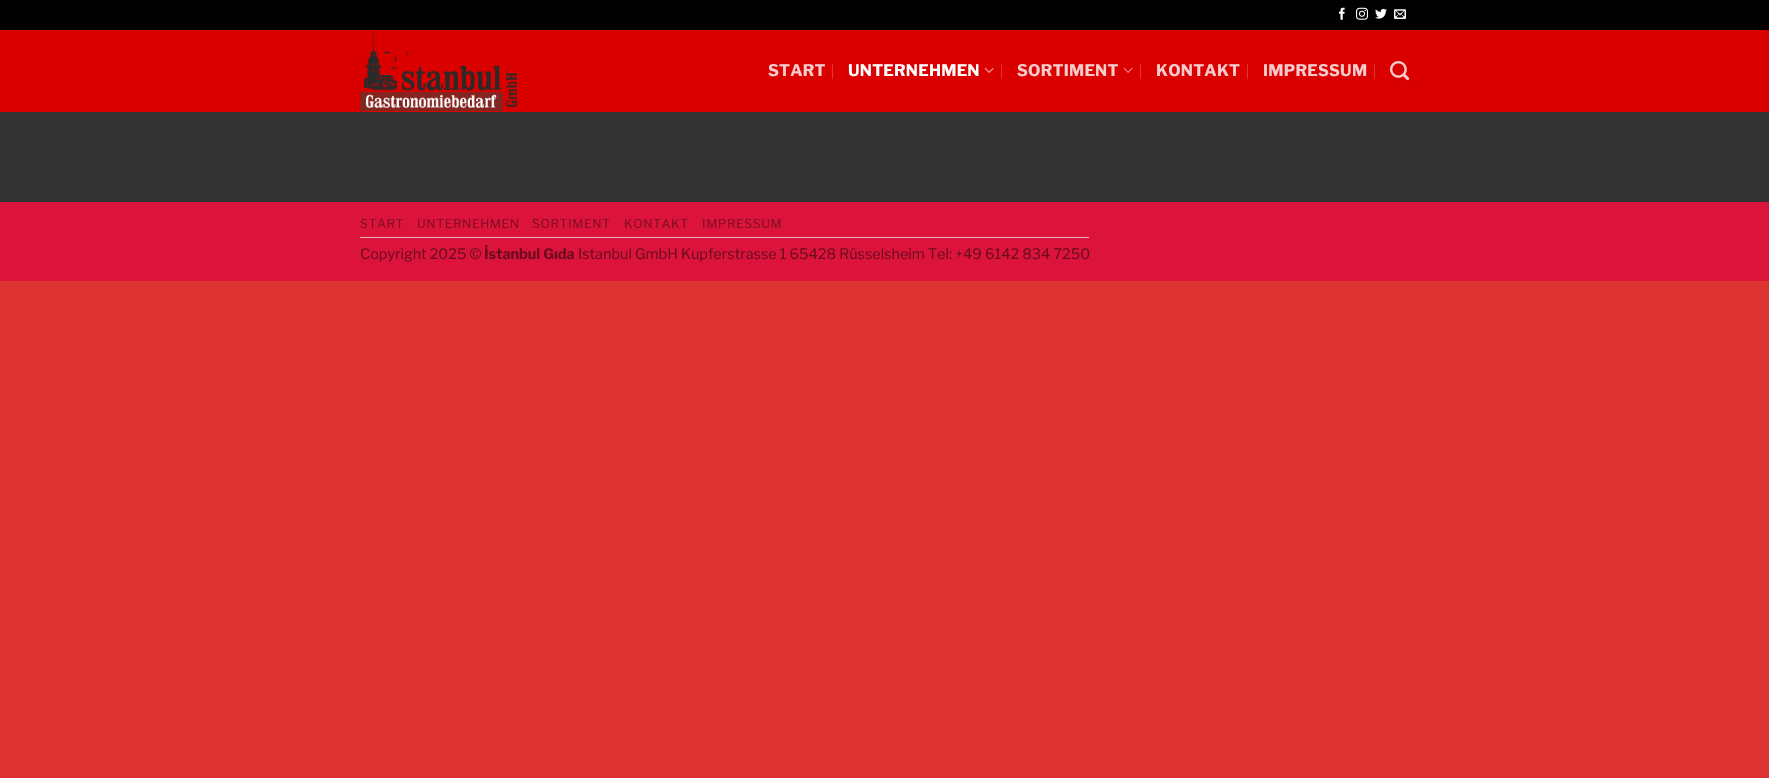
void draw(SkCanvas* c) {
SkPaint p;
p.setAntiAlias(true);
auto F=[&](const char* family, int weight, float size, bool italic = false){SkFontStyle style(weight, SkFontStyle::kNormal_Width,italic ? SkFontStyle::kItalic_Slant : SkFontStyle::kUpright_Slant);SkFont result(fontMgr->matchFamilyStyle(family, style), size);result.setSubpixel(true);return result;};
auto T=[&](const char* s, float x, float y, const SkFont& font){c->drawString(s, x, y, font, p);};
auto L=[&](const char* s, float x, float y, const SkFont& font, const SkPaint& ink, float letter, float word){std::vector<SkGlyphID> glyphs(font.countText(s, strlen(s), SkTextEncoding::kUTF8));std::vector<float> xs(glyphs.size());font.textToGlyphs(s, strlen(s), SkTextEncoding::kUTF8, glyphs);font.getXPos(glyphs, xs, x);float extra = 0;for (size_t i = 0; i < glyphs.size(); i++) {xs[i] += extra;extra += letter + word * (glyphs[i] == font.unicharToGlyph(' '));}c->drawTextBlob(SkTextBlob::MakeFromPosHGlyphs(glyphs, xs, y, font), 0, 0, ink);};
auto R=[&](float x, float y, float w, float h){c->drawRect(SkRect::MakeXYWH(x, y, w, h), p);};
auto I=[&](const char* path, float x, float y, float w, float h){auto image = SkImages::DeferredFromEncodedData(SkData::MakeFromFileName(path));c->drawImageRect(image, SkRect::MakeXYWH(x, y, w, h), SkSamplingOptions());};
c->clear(0xffdd3333);
p.setColor(0xffdb0000);
R(0,30,1769,82);
p.setColor(0xff000000);
R(0,0,1769,30);
I("1.png",1339,7,6,13);
I("2.png",1356,7,12,13);
I("3.png",1375,8,12,11);
I("4.png",1394,9,12,10);
I("5.png",360,31,157,80);
auto f1 = F("Libre Franklin",700,16);
p.setColor(0xfff8cccc);
L("START",768,76,f1,p,.25,0);
p.setColor(0xffe23333);
R(832,64,1,15);
p.setColor(0xffffffff);
L("UNTERNEHMEN",848,76,f1,p,.25,0);
I("6.png",984,67,10,6);
p.setColor(0xffe23333);
R(1001,64,1,15);
p.setColor(0xfff8cccc);
L("SORTIMENT",1017,76,f1,p,.25,0);
I("7.png",1123,67,10,6);
p.setColor(0xffe23333);
R(1140,64,1,15);
p.setColor(0xfff8cccc);
L("KONTAKT",1156,76,f1,p,.25,0);
p.setColor(0xffe23333);
R(1247,64,1,15);
p.setColor(0xfff8cccc);
L("IMPRESSUM",1263,76,f1,p,.25,0);
p.setColor(0xffe23333);
R(1374,64,1,15);
I("8.png",1390,61,20,20);
p.setColor(0xff333333);
R(0,112,1769,90);
p.setColor(0xffdc143c);
R(0,202,1769,79);
p.setColor(0xffddb5bd);
R(360,237,729,1);
auto f2 = F("Libre Franklin",400,12.25);
p.setColor(0xff840c24);
L("START",360,228,f2,p,.6,0);
L("UNTERNEHMEN",417,228,f2,p,.6,0);
L("SORTIMENT",532,228,f2,p,.6,0);
L("KONTAKT",624,228,f2,p,.6,0);
L("IMPRESSUM",702,228,f2,p,.6,0);
auto f3 = F("Libre Franklin",400,14.4);
p.setColor(0xff6e0a1e);
T("Copyright 2025 ©",360,259,f3);
auto f4 = F("Libre Franklin",700,14.4);
T("İstanbul Gıda",484,259,f4);
T("Istanbul GmbH Kupferstrasse 1 65428 Rüsselsheim Tel: +49 6142 834 7250",578,259,f3);
}
